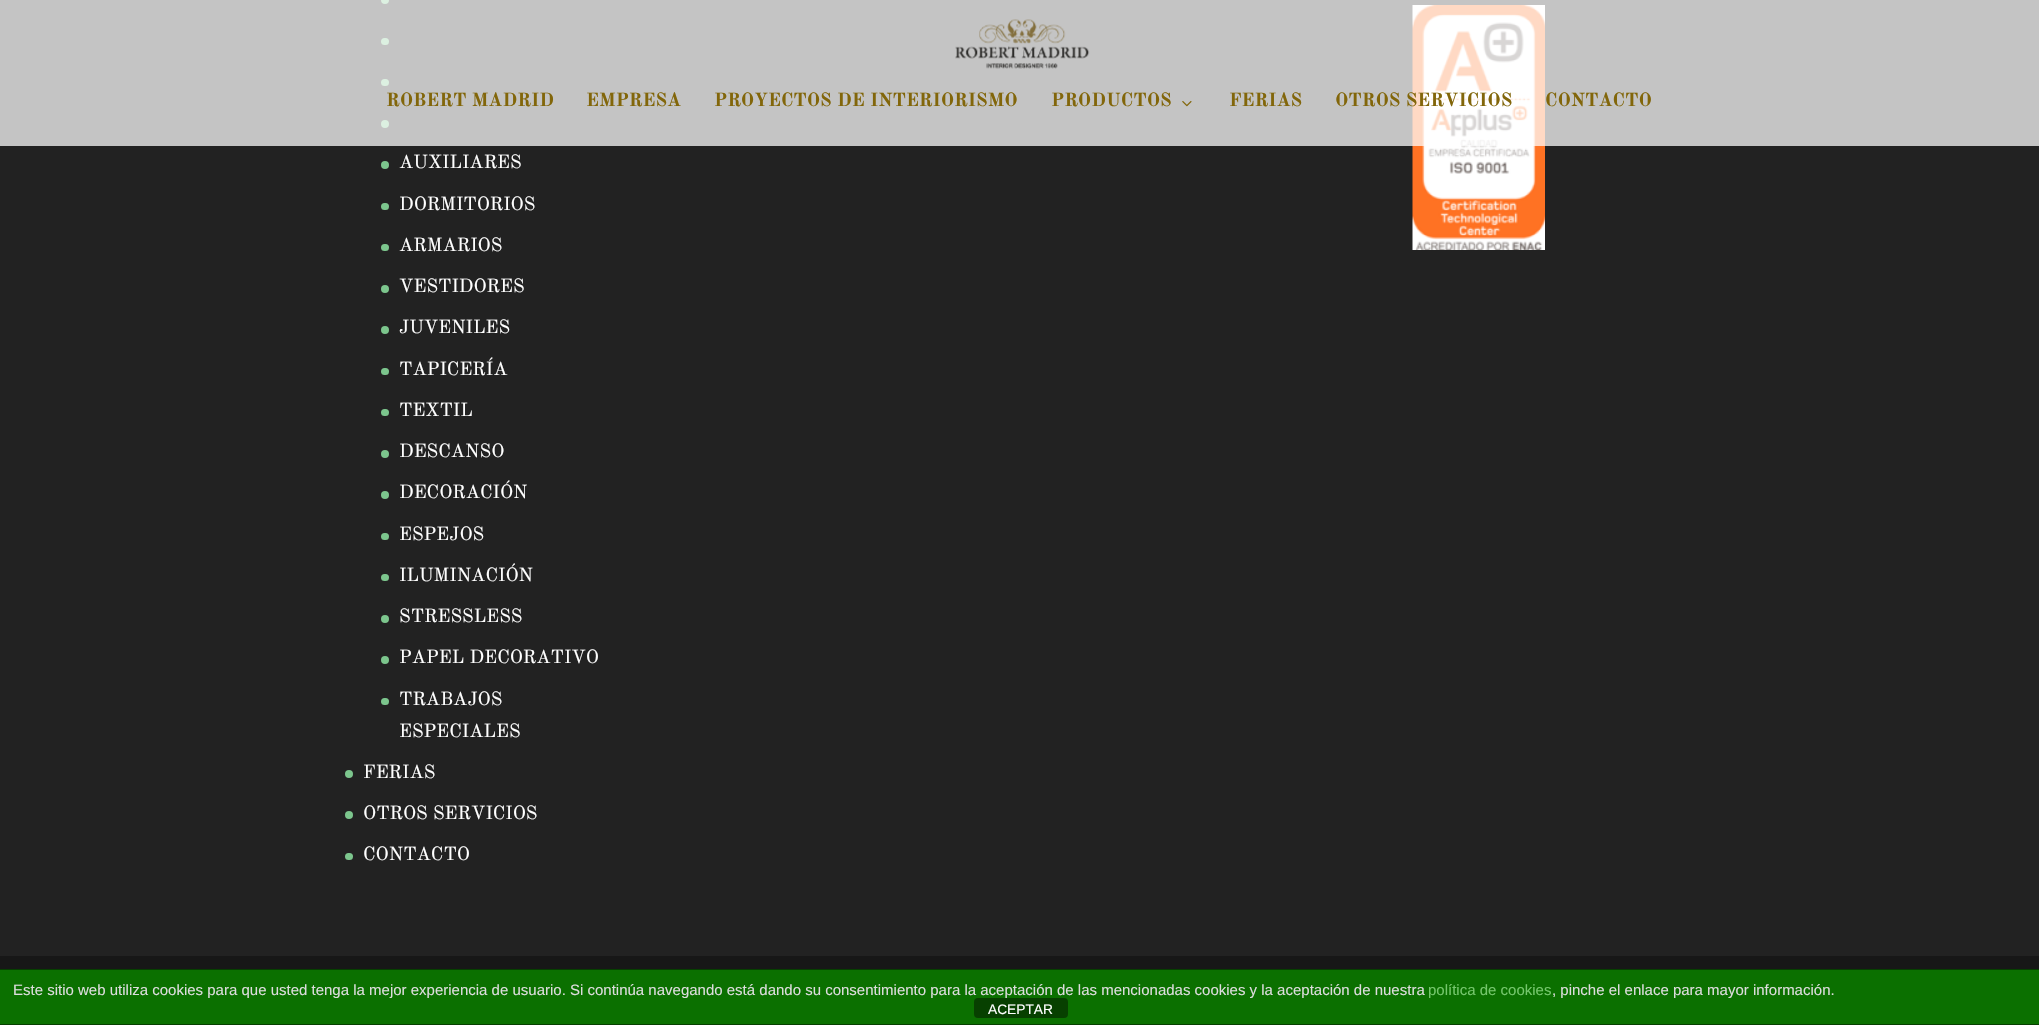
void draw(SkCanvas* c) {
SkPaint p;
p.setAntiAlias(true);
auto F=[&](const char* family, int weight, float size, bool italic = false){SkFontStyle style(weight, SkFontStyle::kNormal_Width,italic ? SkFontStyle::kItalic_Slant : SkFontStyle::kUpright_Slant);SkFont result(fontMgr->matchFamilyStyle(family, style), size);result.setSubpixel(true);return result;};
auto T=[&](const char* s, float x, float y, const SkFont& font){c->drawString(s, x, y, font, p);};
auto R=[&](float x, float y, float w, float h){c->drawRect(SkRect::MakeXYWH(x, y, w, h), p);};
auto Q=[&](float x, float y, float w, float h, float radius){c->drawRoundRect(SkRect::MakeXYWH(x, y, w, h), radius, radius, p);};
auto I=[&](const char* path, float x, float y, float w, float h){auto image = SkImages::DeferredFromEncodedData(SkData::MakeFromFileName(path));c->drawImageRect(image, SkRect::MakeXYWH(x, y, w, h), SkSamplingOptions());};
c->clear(0xff222222);
I("3.png",1412,5,133,245);
p.setColor(0xff7cc68d);
c->drawCircle(385,0,4,p);
Q(381,38,8,7,3.5);
Q(381,79,8,7,3.5);
c->drawCircle(385,124,4,p);
p.setColor(0xbaffffff);
R(0,0,2039,146);
I("1.png",955,19,135,50);
auto f1 = F("Old Standard TT",700,18.75);
p.setColor(0xff82660a);
T("ROBERT MADRID",386,106,f1);
T("EMPRESA",586,106,f1);
T("PROYECTOS DE INTERIORISMO",714,106,f1);
T("PRODUCTOS",1051,106,f1);
I("2.png",1182,101,10,6);
T("FERIAS",1229,106,f1);
T("OTROS SERVICIOS",1335,106,f1);
T("CONTACTO",1545,106,f1);
p.setColor(0xff7cc68d);
c->drawCircle(385,165,4,p);
auto f2 = F("Old Standard TT",400,18.75);
p.setColor(0xffffffff);
T("AUXILIARES",399,168,f2);
p.setColor(0xff7cc68d);
Q(381,203,8,7,3.5);
p.setColor(0xffffffff);
T("DORMITORIOS",399,210,f2);
p.setColor(0xff7cc68d);
Q(381,244,8,7,3.5);
p.setColor(0xffffffff);
T("ARMARIOS",399,251,f2);
p.setColor(0xff7cc68d);
c->drawCircle(385,289,4,p);
p.setColor(0xffffffff);
T("VESTIDORES",399,292,f2);
p.setColor(0xff7cc68d);
c->drawCircle(385,330,4,p);
p.setColor(0xffffffff);
T("JUVENILES",399,333,f2);
p.setColor(0xff7cc68d);
Q(381,368,8,7,3.5);
p.setColor(0xffffffff);
T("TAPICERÍA",399,375,f2);
p.setColor(0xff7cc68d);
Q(381,409,8,7,3.5);
p.setColor(0xffffffff);
T("TEXTIL",399,416,f2);
p.setColor(0xff7cc68d);
c->drawCircle(385,454,4,p);
p.setColor(0xffffffff);
T("DESCANSO",399,457,f2);
p.setColor(0xff7cc68d);
c->drawCircle(385,495,4,p);
p.setColor(0xffffffff);
T("DECORACIÓN",399,498,f2);
p.setColor(0xff7cc68d);
Q(381,533,8,7,3.5);
p.setColor(0xffffffff);
T("ESPEJOS",399,540,f2);
p.setColor(0xff7cc68d);
Q(381,574,8,7,3.5);
p.setColor(0xffffffff);
T("ILUMINACIÓN",399,581,f2);
p.setColor(0xff7cc68d);
c->drawCircle(385,619,4,p);
p.setColor(0xffffffff);
T("STRESSLESS",399,622,f2);
p.setColor(0xff7cc68d);
c->drawCircle(385,660,4,p);
p.setColor(0xffffffff);
T("PAPEL DECORATIVO",399,663,f2);
p.setColor(0xff7cc68d);
Q(381,698,8,7,3.5);
p.setColor(0xffffffff);
T("TRABAJOS",399,705,f2);
T("ESPECIALES",399,737,f2);
p.setColor(0xff7cc68d);
c->drawCircle(349,774,4,p);
p.setColor(0xffffffff);
T("FERIAS",363,778,f2);
p.setColor(0xff7cc68d);
c->drawCircle(349,815,4,p);
p.setColor(0xffffffff);
T("OTROS SERVICIOS",363,819,f2);
p.setColor(0xff7cc68d);
Q(345,853,8,7,3.5);
p.setColor(0xffffffff);
T("CONTACTO",363,860,f2);
p.setColor(0xff171717);
R(0,956,2039,13);
p.setColor(0xff0b7000);
R(0,970,2039,54);
p.setColor(0xff064000);
R(0,969,2039,1);
R(0,1024,2039,1);
p.setColor(0xff074000);
Q(974,998,94,20,4);
auto f3 = F("Liberation Sans",400,15);
p.setColor(0xffdddddd);
T("Este sitio web utiliza cookies para que usted tenga la mejor experiencia de usuario. Si continúa navegando está dando su consentimiento para la aceptación de las mencionadas cookies y la aceptación de nuestra",13,995,f3);
p.setColor(0xff75c76c);
T("política de cookies",1428,995,f3);
p.setColor(0xffdddddd);
T(", pinche el enlace para mayor información.",1552,995,f3);
auto f4 = F("Liberation Sans",400,13.75);
p.setColor(0xffffffff);
T("ACEPTAR",988,1014,f4);
}
